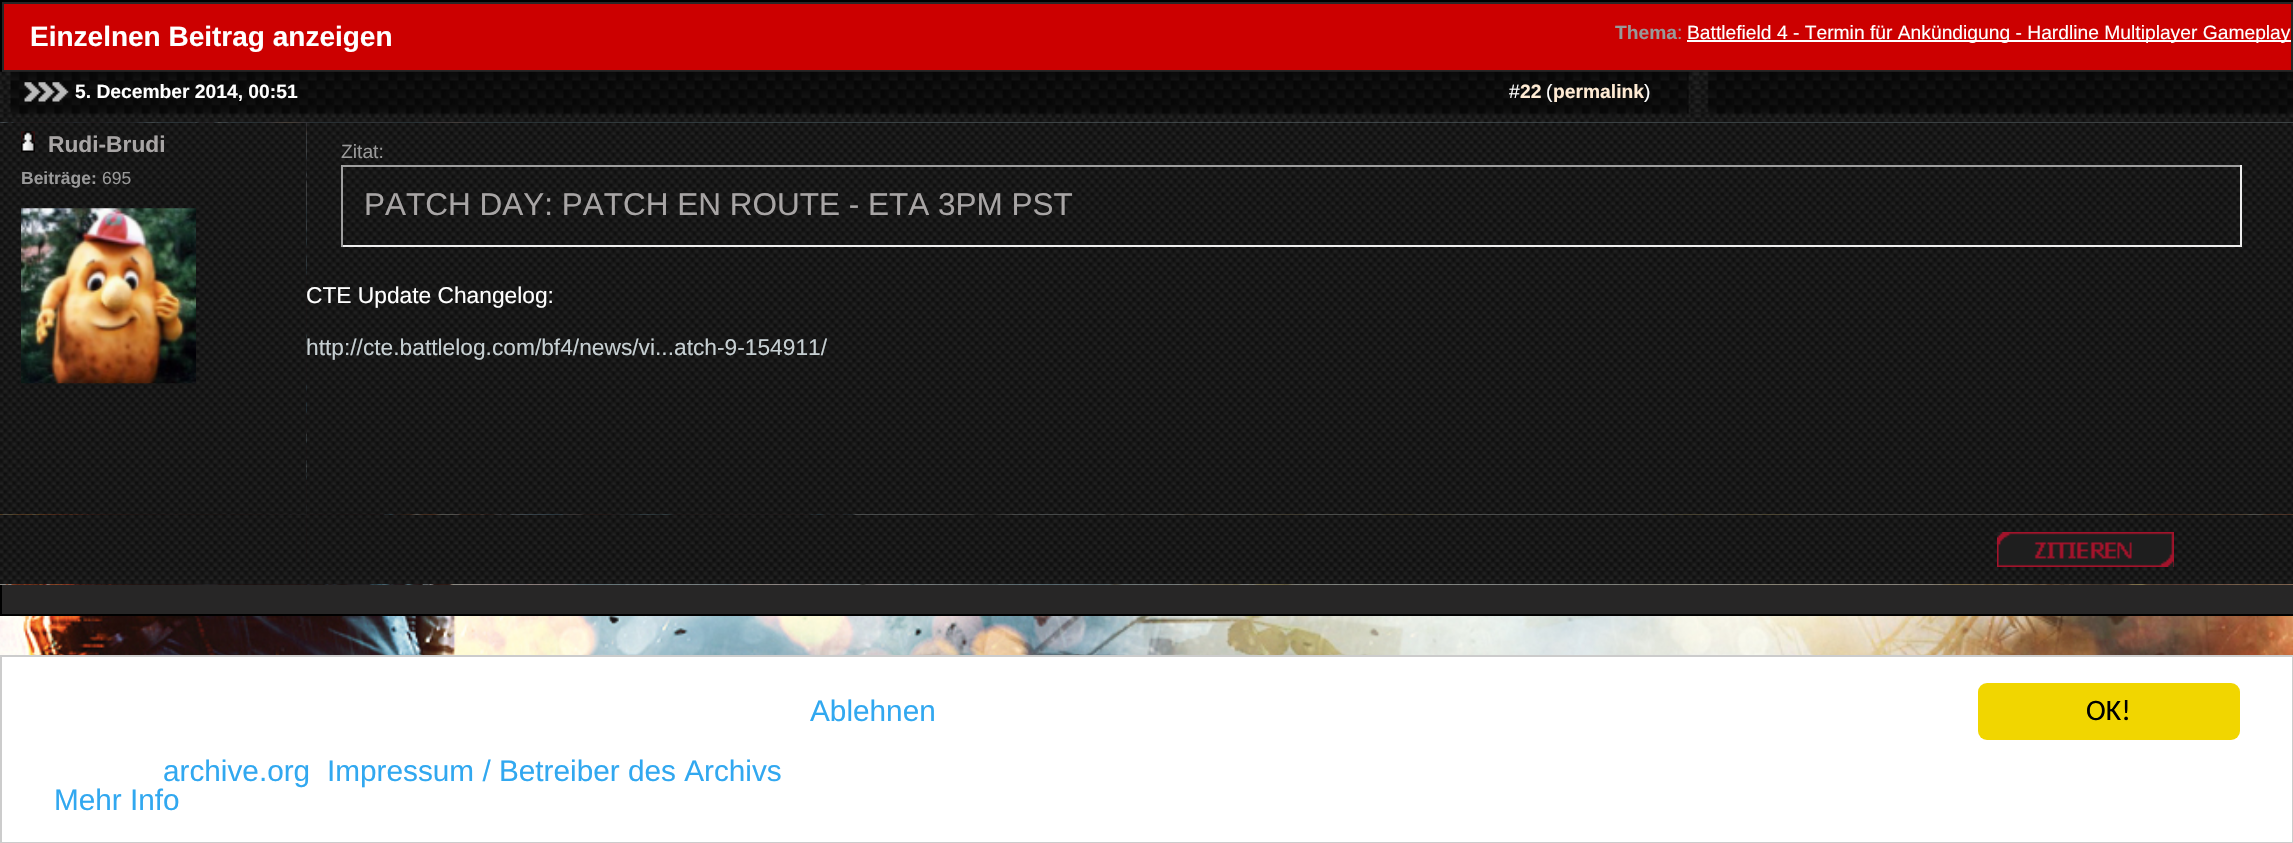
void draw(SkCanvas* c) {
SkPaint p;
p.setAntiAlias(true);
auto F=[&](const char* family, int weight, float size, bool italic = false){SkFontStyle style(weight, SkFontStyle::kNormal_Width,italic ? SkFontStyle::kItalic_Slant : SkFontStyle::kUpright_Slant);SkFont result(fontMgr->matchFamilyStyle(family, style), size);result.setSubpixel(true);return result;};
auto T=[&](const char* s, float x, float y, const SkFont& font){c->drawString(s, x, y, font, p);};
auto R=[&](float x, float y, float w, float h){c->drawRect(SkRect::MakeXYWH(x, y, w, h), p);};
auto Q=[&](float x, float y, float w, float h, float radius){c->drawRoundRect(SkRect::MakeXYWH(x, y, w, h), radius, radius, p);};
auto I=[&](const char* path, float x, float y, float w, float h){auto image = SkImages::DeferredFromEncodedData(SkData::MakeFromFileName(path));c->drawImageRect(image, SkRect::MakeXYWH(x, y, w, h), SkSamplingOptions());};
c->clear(0xff000000);
I("1.png",0,122,2293,533);
p.setColor(0xff272626);
R(2,2,2291,70);
p.setColor(0xffcc0000);
R(4,4,2287,66);
auto f1 = F("Liberation Sans",700,28);
p.setColor(0xffffffff);
T("Einzelnen Beitrag anzeigen",30,46,f1);
auto f2 = F("Liberation Sans",700,19.25);
p.setColor(0xff999999);
T("Thema",1615,39,f2);
auto f3 = F("Liberation Sans",400,19.25);
T(":",1677,39,f3);
p.setColor(0xffffffff);
R(1687,40,604,2);
T("Battlefield 4 - Termin für Ankündigung - Hardline Multiplayer Gameplay",1687,39,f3);
I("2.png",0,71,2293,52);
I("3.png",24,82,45,20);
T("5. December 2014, 00:51",75,98,f2);
T("#",1509,98,f3);
p.setColor(0xffffebd4);
T("22",1520,98,f2);
p.setColor(0xffffffff);
T("(",1546,98,f3);
p.setColor(0xffffebd4);
T("permalink",1553,98,f2);
p.setColor(0xffffffff);
T(")",1644,98,f3);
I("4.png",0,122,307,393);
I("5.png",21,131,14,22);
auto f4 = F("Liberation Sans",700,22.75);
p.setColor(0xffa8a5a5);
T("Rudi-Brudi",48,152,f4);
auto f5 = F("Liberation Sans",700,17.5);
p.setColor(0xff999999);
T("Beiträge:",21,184,f5);
auto f6 = F("Liberation Sans",400,17.5);
T("695",102,184,f6);
I("6.png",21,208,175,176);
I("7.png",306,122,1987,393);
T("Zitat:",341,158,f3);
I("8.png",341,164,1901,81);
p.setColor(0xff9f9f9f);
R(341,165,1901,2);
p.setColor(0xffeeeeee);
R(2240,165,2,82);
R(341,245,1901,2);
p.setColor(0xff9f9f9f);
R(341,165,2,82);
auto f7 = F("Liberation Sans",400,31.5);
p.setColor(0xffa8a5a5);
T("PATCH DAY: PATCH EN ROUTE - ETA 3PM PST",364,215,f7);
auto f8 = F("Liberation Sans",400,22.75);
p.setColor(0xffffffff);
T("CTE Update Changelog:",306,303,f8);
p.setColor(0xffc6cfd2);
T("http://cte.battlelog.com/bf4/news/vi...atch-9-154911/",306,355,f8);
I("9.png",0,514,307,53);
I("10.png",306,514,1987,53);
p.setColor(0xffa3132b);
R(1997,532,177,35);
I("11.png",1997,532,177,35);
I("12.png",0,567,2293,18);
p.setColor(0xff272626);
R(2,585,2291,29);
p.setColor(0xff000000);
R(0,614,2293,2);
R(0,585,2,31);
p.setColor(0xffffffff);
c->drawRect(SkRect::MakeXYWH(1,656,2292,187),p);
p.setStroke(true);
p.setStrokeWidth(2);
p.setColor(0xffcccccc);
c->drawRect(SkRect::MakeXYWH(1,656,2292,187),p);
auto f9 = F("Liberation Sans",400,29.75);
p.setStroke(false);
p.setColor(0xff31a8f0);
T("Ablehnen",810,721,f9);
T("archive.org",163,781,f9);
T("Impressum / Betreiber des Archivs",327,781,f9);
T("Mehr Info",54,810,f9);
p.setColor(0xfff1d600);
Q(1978,683,262,57,9);
auto f10 = F("Carlito",400,29.75);
p.setColor(0xff000000);
T("OK!",2086,720,f10);
}
